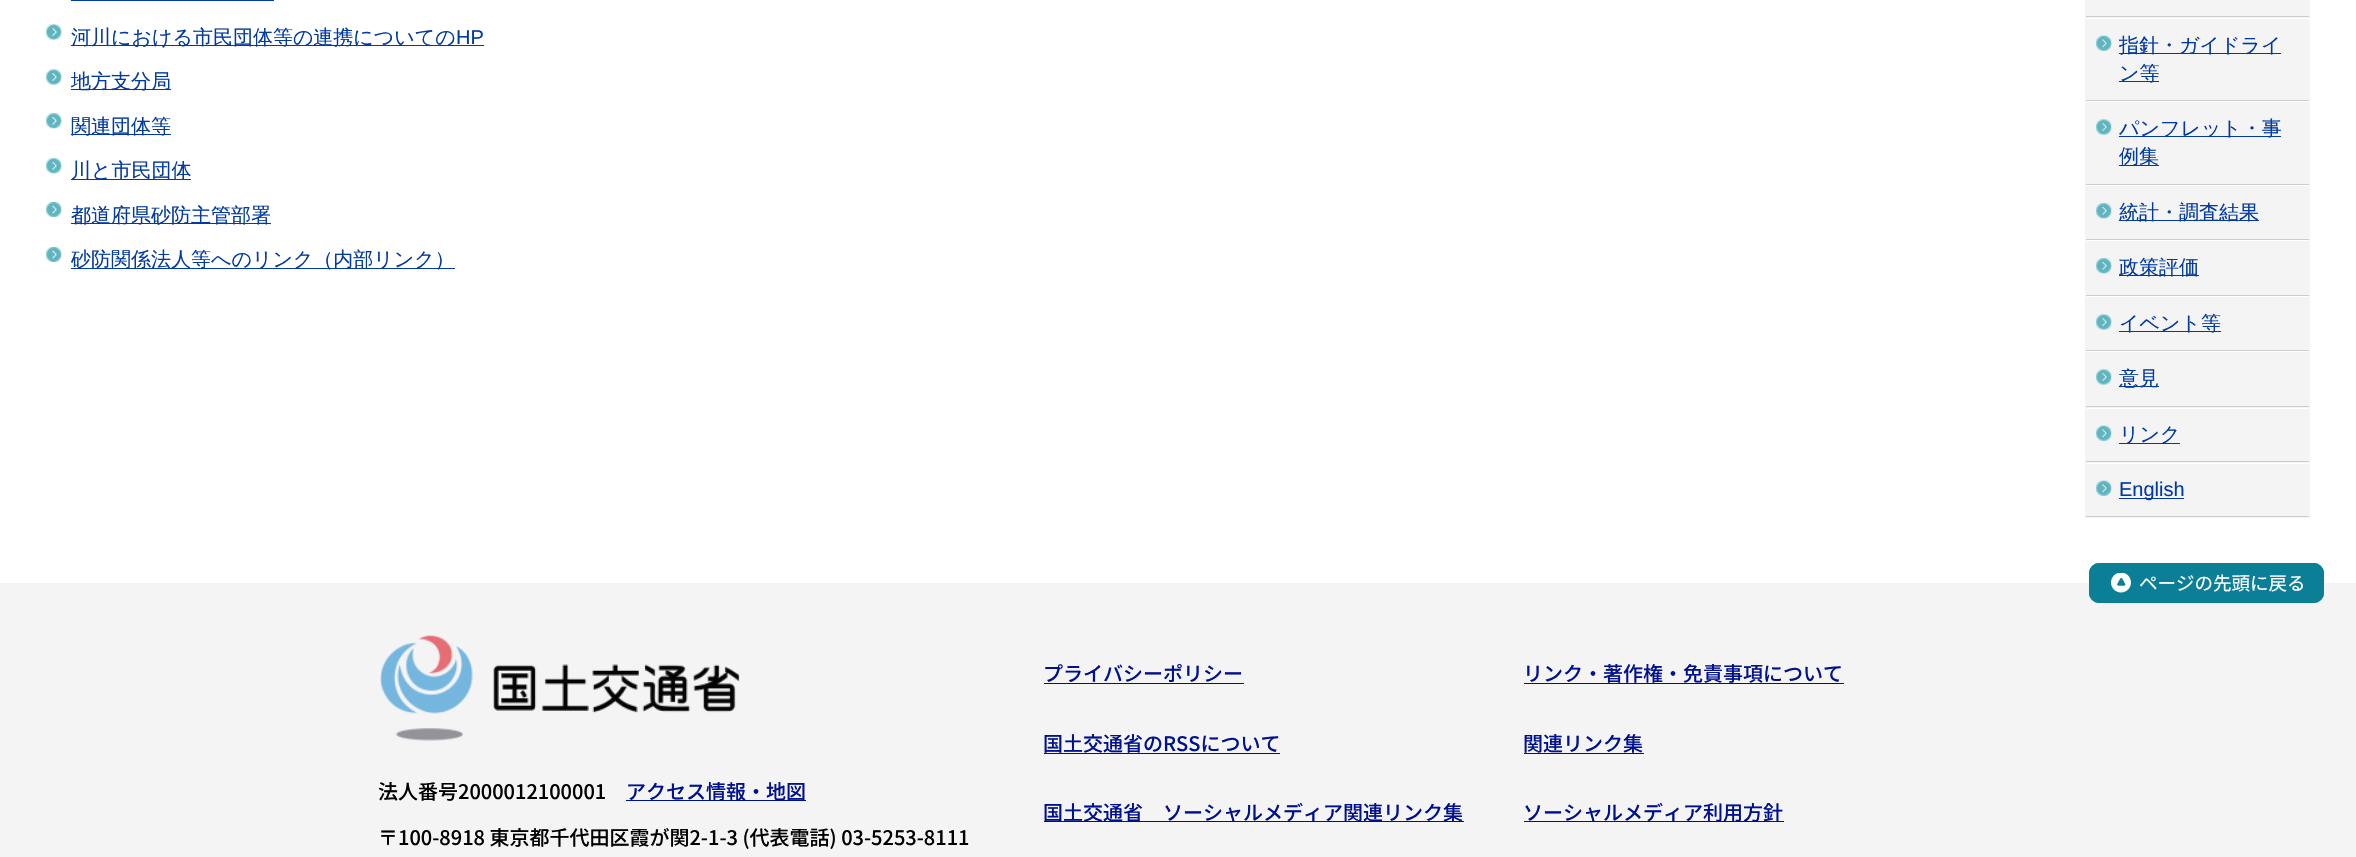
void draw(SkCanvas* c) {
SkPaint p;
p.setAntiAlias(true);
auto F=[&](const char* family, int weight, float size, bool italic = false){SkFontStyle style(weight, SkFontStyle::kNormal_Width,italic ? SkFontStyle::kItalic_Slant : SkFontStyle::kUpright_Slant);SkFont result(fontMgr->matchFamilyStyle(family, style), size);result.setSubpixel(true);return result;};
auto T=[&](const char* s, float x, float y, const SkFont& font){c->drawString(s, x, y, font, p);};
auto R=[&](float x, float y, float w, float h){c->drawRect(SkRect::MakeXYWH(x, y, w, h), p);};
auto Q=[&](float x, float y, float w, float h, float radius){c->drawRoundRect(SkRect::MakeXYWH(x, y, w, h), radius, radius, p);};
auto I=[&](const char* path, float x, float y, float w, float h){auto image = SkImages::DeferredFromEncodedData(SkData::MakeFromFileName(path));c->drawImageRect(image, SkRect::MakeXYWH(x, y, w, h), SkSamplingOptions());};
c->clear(0xffffffff);
p.setColor(0xff013aa2);
R(71,0,203,1);
I("1.png",46,24,16,16);
R(71,45,413,1);
auto f1 = F("WenQuanYi Zen Hei",500,20);
T("河川における市民団体等の連携についての",71,44,f1);
auto f2 = F("Liberation Sans",400,20);
T("HP",456,44,f2);
I("1.png",46,69,16,16);
R(71,89,100,1);
T("地方支分局",71,88,f1);
I("2.png",46,113,16,16);
R(71,134,100,1);
T("関連団体等",71,133,f1);
I("2.png",46,158,16,16);
R(71,179,120,1);
T("川と市民団体",71,177,f1);
I("3.png",46,202,16,15);
R(71,223,200,1);
T("都道府県砂防主管部署",71,222,f1);
I("3.png",46,247,16,15);
R(71,268,384,1);
T("砂防関係法人等へのリンク（内部リンク）",71,266,f1);
p.setColor(0xfff4f4f4);
R(2309,0,1,518);
R(2085,0,1,518);
R(2086,0,223,18);
p.setColor(0xffcccccc);
R(2086,16,223,1);
p.setColor(0xfff4f4f4);
R(2086,19,223,81);
p.setColor(0xffcccccc);
R(2086,100,223,1);
I("4.png",2096,35,16,16);
p.setColor(0xff013aa2);
R(2119,53,162,1);
T("指針・ガイドライ",2119,52,f1);
R(2119,81,40,1);
T("ン等",2119,80,f1);
p.setColor(0xfff4f4f4);
R(2086,102,223,82);
p.setColor(0xffcccccc);
R(2086,184,223,1);
I("5.png",2096,119,16,16);
p.setColor(0xff013aa2);
R(2119,136,162,1);
T("パンフレット・事",2119,135,f1);
R(2119,165,40,1);
T("例集",2119,163,f1);
p.setColor(0xfff4f4f4);
R(2086,186,223,53);
p.setColor(0xffcccccc);
R(2086,239,223,1);
I("6.png",2096,203,16,16);
p.setColor(0xff013aa2);
R(2119,220,140,1);
T("統計・調査結果",2119,219,f1);
p.setColor(0xfff4f4f4);
R(2086,241,223,54);
p.setColor(0xffcccccc);
R(2086,295,223,1);
I("6.png",2096,258,16,16);
p.setColor(0xff013aa2);
R(2119,275,80,1);
T("政策評価",2119,274,f1);
p.setColor(0xfff4f4f4);
R(2086,297,223,53);
p.setColor(0xffcccccc);
R(2086,350,223,1);
I("5.png",2096,314,16,16);
p.setColor(0xff013aa2);
R(2119,331,102,1);
T("イベント等",2119,330,f1);
p.setColor(0xfff4f4f4);
R(2086,352,223,56);
p.setColor(0xffcccccc);
R(2086,406,223,1);
I("5.png",2096,369,16,16);
p.setColor(0xff013aa2);
R(2119,386,40,1);
T("意見",2119,385,f1);
p.setColor(0xfff4f4f4);
R(2086,409,223,54);
p.setColor(0xffcccccc);
R(2086,461,223,1);
I("4.png",2096,425,16,16);
p.setColor(0xff013aa2);
R(2119,443,61,1);
T("リンク",2119,441,f1);
p.setColor(0xfff4f4f4);
R(2086,464,223,54);
p.setColor(0xffcccccc);
R(2086,516,223,1);
I("4.png",2096,480,16,16);
p.setColor(0xff013aa2);
R(2119,498,65,1);
T("English",2119,496,f2);
p.setColor(0xfff4f4f4);
R(0,583,2356,274);
p.setColor(0xff0b7f96);
Q(2089,563,235,40,10);
I("7.png",2111,573,20,20);
p.setStroke(true);
p.setStrokeWidth(1);
c->drawRoundRect(SkRect::MakeXYWH(2089.5,563.5,234,39),9.5,9.5,p);
auto f3 = F("Noto Sans JP",400,18.5);
p.setStroke(false);
p.setColor(0xffffffff);
T("ページの先頭に戻る",2139,590,f3);
I("8.png",380,635,360,106);
auto f4 = F("Noto Sans JP",500,20);
p.setColor(0xff000000);
T("法人番号2000012100001",378,799,f4);
p.setColor(0xff00118f);
R(626,800,180,1);
T("アクセス情報・地図",626,799,f4);
p.setColor(0xff000000);
T("〒100-8918 東京都千代田区霞が関2-1-3 (代表電話) 03-5253-8111",378,845,f4);
p.setColor(0xff00118f);
T("プライバシーポリシー",1043,681,f4);
R(1044,683,200,1);
T("リンク・著作権・免責事項について",1523,681,f4);
R(1524,683,320,1);
T("国土交通省のRSSについて",1043,751,f4);
R(1044,753,236,1);
T("関連リンク集",1523,751,f4);
R(1524,753,120,1);
R(1044,821,420,1);
T("国土交通省　ソーシャルメディア関連リンク集",1043,820,f4);
R(1524,821,260,1);
T("ソーシャルメディア利用方針",1523,820,f4);
}
